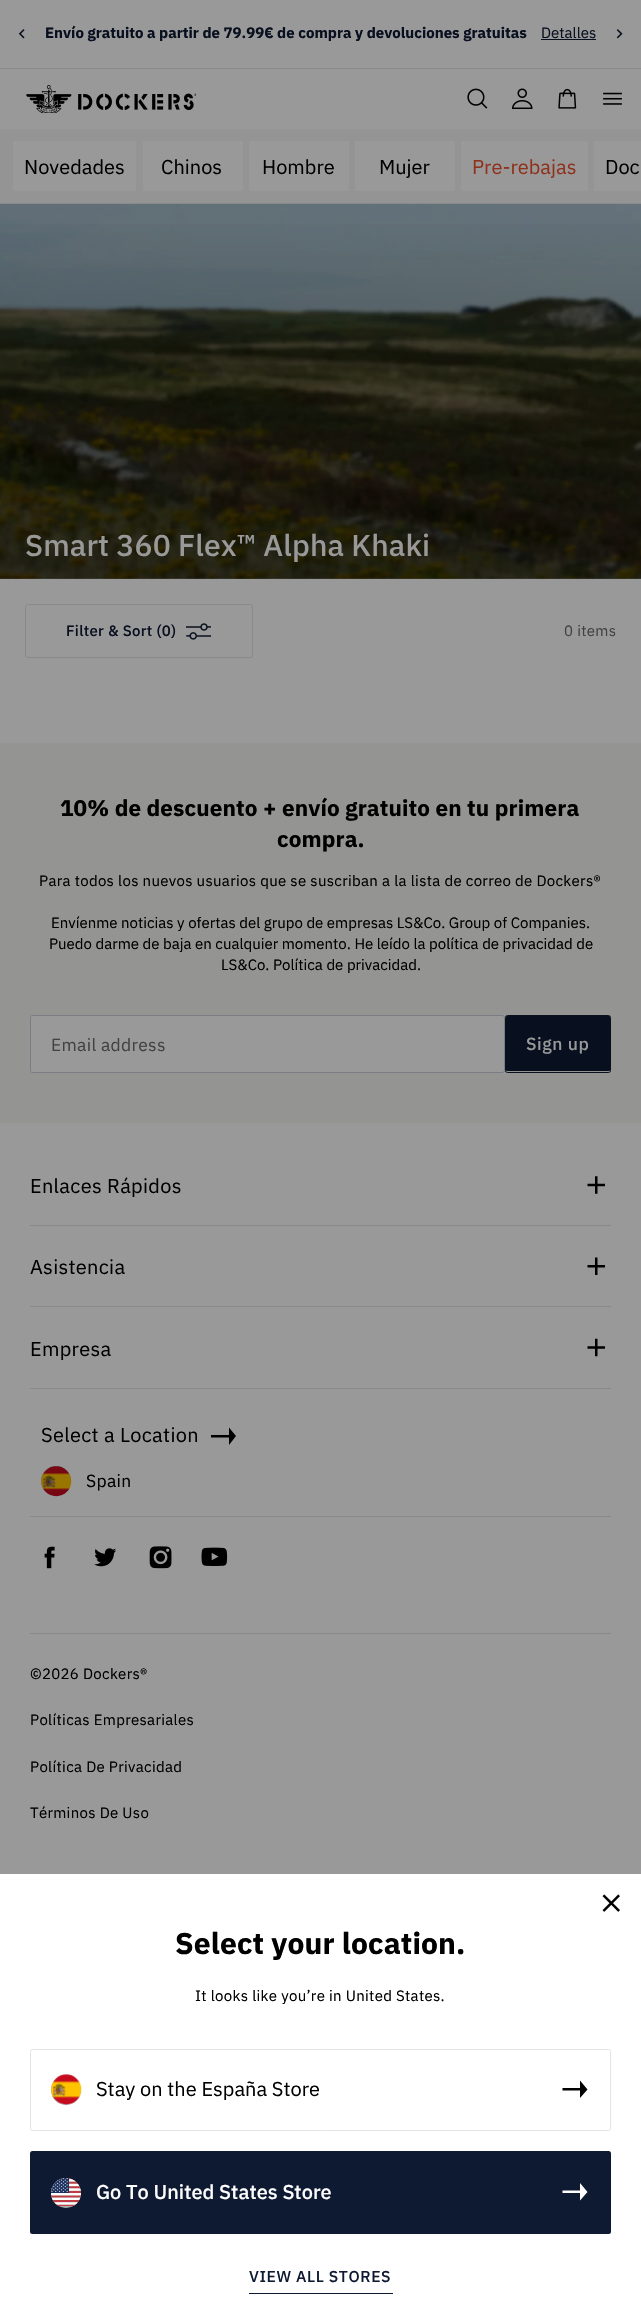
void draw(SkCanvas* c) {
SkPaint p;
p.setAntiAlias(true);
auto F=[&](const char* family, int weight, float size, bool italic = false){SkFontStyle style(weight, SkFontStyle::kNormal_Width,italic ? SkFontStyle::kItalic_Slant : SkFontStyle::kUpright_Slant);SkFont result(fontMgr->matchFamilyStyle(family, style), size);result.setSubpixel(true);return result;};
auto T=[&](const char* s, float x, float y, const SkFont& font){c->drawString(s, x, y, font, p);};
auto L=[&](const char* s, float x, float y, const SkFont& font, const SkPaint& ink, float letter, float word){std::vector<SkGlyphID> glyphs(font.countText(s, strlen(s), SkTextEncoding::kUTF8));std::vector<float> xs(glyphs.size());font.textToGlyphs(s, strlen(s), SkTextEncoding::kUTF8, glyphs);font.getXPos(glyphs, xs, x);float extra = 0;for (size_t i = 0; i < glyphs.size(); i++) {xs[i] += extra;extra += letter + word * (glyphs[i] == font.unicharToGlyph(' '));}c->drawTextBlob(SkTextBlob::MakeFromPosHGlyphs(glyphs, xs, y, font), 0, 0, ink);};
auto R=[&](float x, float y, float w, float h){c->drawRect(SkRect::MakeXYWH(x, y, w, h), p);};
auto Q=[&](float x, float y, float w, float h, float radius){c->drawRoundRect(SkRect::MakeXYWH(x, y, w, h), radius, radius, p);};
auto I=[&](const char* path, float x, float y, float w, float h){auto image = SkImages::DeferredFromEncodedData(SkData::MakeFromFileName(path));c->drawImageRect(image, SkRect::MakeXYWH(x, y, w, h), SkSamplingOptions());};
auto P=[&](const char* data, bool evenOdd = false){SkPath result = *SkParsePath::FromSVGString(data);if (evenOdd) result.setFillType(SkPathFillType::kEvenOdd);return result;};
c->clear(0xff999999);
p.setColor(0xff898989);
R(0,68,641,1);
I("1.png",18,29,7,10);
auto f1 = F("IBM Plex Sans",700,15);
p.setColor(0xff080f1e);
T("Envío gratuito a partir de 79.99€ de compra y devoluciones gratuitas",45,38,f1);
auto f2 = F("IBM Plex Sans",400,15);
T("Detalles",541,38,f2);
R(541,39,55,1);
I("2.png",616,29,7,10);
I("3.png",26,85,170,28);
I("4.png",467,88,21,21);
I("5.png",512,88,21,21);
I("6.png",558,88,19,21);
I("7.png",603,92,19,13);
p.setColor(0xff949494);
R(0,129,641,75);
p.setColor(0xff999999);
R(13,141,123,50);
auto f3 = F("IBM Plex Sans",400,20);
p.setColor(0xff000000);
T("Novedades",24,174,f3);
p.setColor(0xff999999);
R(143,141,100,50);
p.setColor(0xff000000);
T("Chinos",161,174,f3);
p.setColor(0xff999999);
R(249,141,100,50);
p.setColor(0xff000000);
T("Hombre",262,174,f3);
p.setColor(0xff999999);
R(355,141,100,50);
p.setColor(0xff000000);
T("Mujer",379,174,f3);
p.setColor(0xff999999);
R(461,141,127,50);
p.setColor(0xff90311c);
T("Pre-rebajas",472,174,f3);
p.setColor(0xff999999);
R(594,141,47,50);
p.setColor(0xff000000);
T("Doc",605,174,f3);
I("8.png",0,203,641,376);
{
const SkColor colors[] = {0x00000000,0x66000000};
const float stops[] = {0,1};
const SkPoint ends[] = {{321,204}, {321,579}};
p.setShader(SkGradientShader::MakeLinear(ends, colors, stops, 2, SkTileMode::kClamp));
p.setAlpha(255);
}
R(0,224,641,355);
auto f4 = F("IBM Plex Sans",500,30.1);
p.setShader(nullptr);
p.setColor(0xff999999);
L("Smart 360 Flex™ Alpha Khaki",25,556,f4,p,.1,0);
p.setStroke(true);
p.setStrokeWidth(1);
p.setColor(0xff898989);
c->drawRoundRect(SkRect::MakeXYWH(25.5,604.5,227,53),2,2,p);
auto f5 = F("IBM Plex Sans",500,15);
p.setStroke(false);
p.setColor(0xff080f1e);
L("Filter & Sort (0)",66,636,f5,p,.3,0);
I("9.png",186,623,25,17);
p.setColor(0xff424242);
L("0 items",564,636,f2,p,.3,0);
p.setColor(0xff949492);
R(0,743,641,380);
auto f6 = F("IBM Plex Sans",700,22.5);
p.setColor(0xff000000);
L("10% de descuento + envío gratuito en tu primera",60,816,f6,p,.1,0);
L("compra.",277,847,f6,p,.1,0);
L("Para todos los nuevos usuarios que se suscriban a la lista de correo de Dockers®",39,886,f2,p,.3,0);
T("Envíenme noticias y ofertas del grupo de empresas LS&Co. Group of Companies.",51,928,f2);
T("Puedo darme de baja en cualquier momento. He leído la política de privacidad de",49,949,f2);
T("LS&Co. Política de privacidad.",221,970,f2);
p.setColor(0xff999999);
c->drawRoundRect(SkRect::MakeXYWH(30.5,1015.5,474,57),2,2,p);
p.setStroke(true);
p.setColor(0xff7b7d82);
c->drawRoundRect(SkRect::MakeXYWH(30.5,1015.5,474,57),2,2,p);
auto f7 = F("IBM Plex Sans",400,17.5);
p.setStroke(false);
p.setColor(0xff424242);
L("Email address",51,1051,f7,p,.3,0);
p.setColor(0xff080f1e);
Q(506,1016,104,55,1);
p.setStroke(true);
c->drawRoundRect(SkRect::MakeXYWH(505.5,1015.5,105,57),2,2,p);
auto f8 = F("IBM Plex Sans",500,17.5);
p.setStroke(false);
p.setColor(0xff999999);
L("Sign up",526,1050,f8,p,.6,0);
p.setColor(0xff898989);
R(30,1225,581,1);
p.setColor(0xff000000);
L("Enlaces Rápidos",30,1193,f3,p,.3,0);
I("10.png",587,1176,18,18);
p.setColor(0xff898989);
R(30,1306,581,1);
p.setColor(0xff000000);
L("Asistencia",30,1274,f3,p,.3,0);
I("11.png",587,1257,18,18);
p.setColor(0xff898989);
R(30,1388,581,1);
p.setColor(0xff000000);
L("Empresa",30,1356,f3,p,.3,0);
I("12.png",587,1338,18,19);
L("Select a Location",41,1442,f3,p,.3,0);
c->drawPath(P("M229 1435v-7.5l7 8.5l-7 9v-7.5h-18v-2.5z"),p);
p.setColor(0xff676767);
c->drawCircle(56,1481,15,p);
I("13.png",41,1466,31,31);
p.setColor(0xff000000);
L("Spain",86,1487,f7,p,.3,0);
p.setColor(0xff898989);
R(30,1516,581,1);
I("14.png",44,1546,11,23);
I("15.png",94,1548,22,19);
I("16.png",149,1546,23,23);
I("17.png",201,1547,27,19);
R(30,1633,581,1);
p.setColor(0xff000000);
L("©2026 Dockers®",30,1679,f2,p,.3,0);
L("Políticas Empresariales",30,1725,f2,p,.3,0);
L("Política De Privacidad",30,1772,f2,p,.3,0);
L("Términos De Uso",30,1818,f2,p,.3,0);
p.setColor(0xffffffff);
R(0,1874,641,449);
I("18.png",602,1894,18,18);
auto f9 = F("IBM Plex Sans",700,30);
p.setColor(0xff000000);
L("Select your location.",175,1954,f9,p,.1,0);
L("It looks like you’re in United States.",195,2001,f2,p,.3,0);
p.setStroke(true);
p.setColor(0xffe4e4e4);
c->drawRoundRect(SkRect::MakeXYWH(30.5,2049.5,580,81),2,2,p);
p.setStroke(false);
p.setColor(0xffacacac);
c->drawCircle(66,2090,15,p);
I("19.png",51,2074,31,32);
p.setColor(0xff000000);
T("Stay on the España Store",96,2096,f3);
c->drawPath(P("M580 2088v-7.5l7.5 9l-7.5 8.5v-7.5h-17.5v-2.5z"),p);
p.setColor(0xff0e1932);
Q(30,2151,581,83,2.5);
p.setColor(0xffacacac);
c->drawCircle(66,2193,15,p);
I("20.png",51,2178,30,28);
auto f10 = F("IBM Plex Sans",500,20);
p.setColor(0xffffffff);
T("Go To United States Store",96,2199,f10);
c->drawPath(P("M580 2190.5v-7.5l7.5 9l-7.5 8.5v-7.5h-17.5v-2.5z"),p);
auto f11 = F("IBM Plex Sans",500,15.75);
p.setColor(0xff0e1932);
L("VIEW ALL STORES",249,2282,f11,p,.6,0);
R(249,2293,144,1);
}
